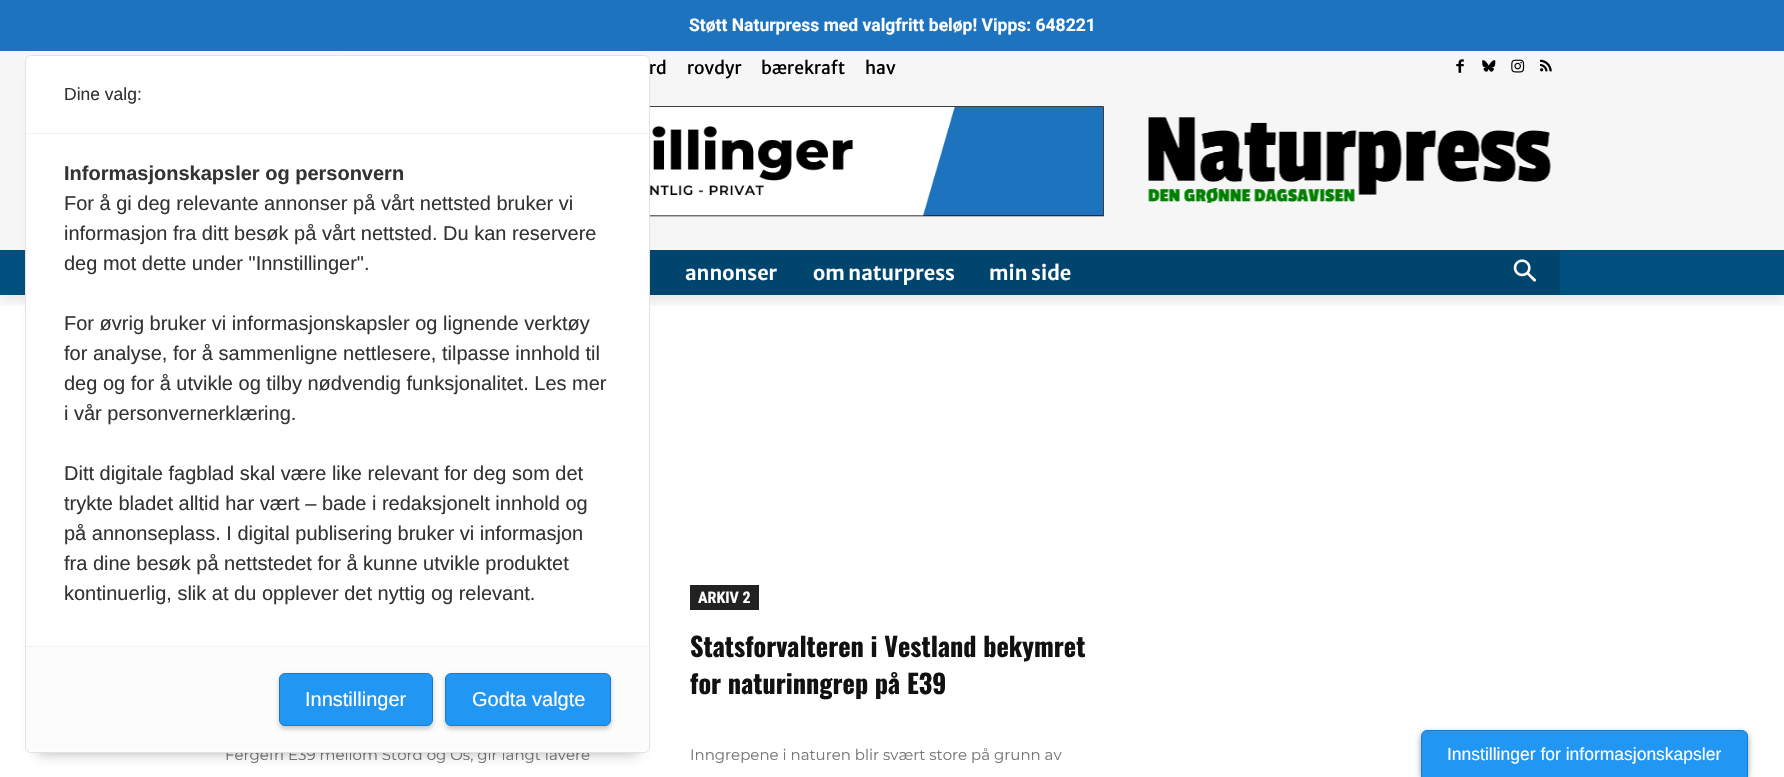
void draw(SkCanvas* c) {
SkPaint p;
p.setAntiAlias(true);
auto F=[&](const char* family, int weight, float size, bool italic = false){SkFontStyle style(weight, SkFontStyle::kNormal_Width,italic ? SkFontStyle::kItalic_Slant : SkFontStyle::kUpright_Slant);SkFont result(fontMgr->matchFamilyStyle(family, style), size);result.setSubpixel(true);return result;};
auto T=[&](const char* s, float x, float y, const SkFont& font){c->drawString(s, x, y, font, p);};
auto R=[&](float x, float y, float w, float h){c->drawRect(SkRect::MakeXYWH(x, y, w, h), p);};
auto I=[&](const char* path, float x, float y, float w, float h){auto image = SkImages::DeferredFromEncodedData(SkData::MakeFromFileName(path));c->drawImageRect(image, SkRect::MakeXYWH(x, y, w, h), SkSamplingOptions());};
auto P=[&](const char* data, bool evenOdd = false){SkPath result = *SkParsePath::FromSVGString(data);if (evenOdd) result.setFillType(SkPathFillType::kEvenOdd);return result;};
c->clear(0xffffffff);
p.setColor(0xff1e73be);
R(0,0,1784,51);
auto f1 = F("Roboto",700,17.5);
p.setColor(0xffffffff);
T("Støtt Naturpress med valgfritt beløp! Vipps: 648221",689,31,f1);
p.setColor(0xfff6f6f6);
R(0,51,1784,199);
auto f2 = F("Merriweather Sans",400,17.5);
p.setColor(0xff000000);
T("rd",649,74,f2);
T("rovdyr",687,74,f2);
T("bærekraft",761,74,f2);
T("hav",865,74,f2);
I("1.png",1456,59,8,14);
I("2.png",1482,60,14,12);
I("3.png",1511,59,14,14);
I("4.png",1540,59,12,13);
I("5.png",650,106,454,111);
I("6.png",1148,117,403,86);
p.setColor(0xff00507f);
R(0,250,1784,45);
p.setColor(0xff00456e);
R(650,250,910,45);
c->save();
c->clipRect(SkRect::MakeXYWH(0,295,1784,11));
p.setColor(0x14000000);
p.setMaskFilter(SkMaskFilter::MakeBlur(kNormal_SkBlurStyle, 5));
c->drawRect(SkRect::MakeXYWH(0,258,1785,45),p);
p.setMaskFilter(nullptr);
c->restore();
auto f3 = F("Merriweather Sans",600,20);
p.setColor(0xffffffff);
T("annonser",685,280,f3);
T("om naturpress",813,280,f3);
T("min side",989,280,f3);
I("7.png",1513,259,23,23);
auto f4 = F("Montserrat",400,15);
p.setColor(0xff767676);
T("Fergefri E39 mellom Stord og Os, gir langt lavere",225,760,f4);
p.setColor(0xff222222);
R(690,585,69,25);
auto f5 = F("Roboto Condensed",700,16);
p.setColor(0xffffffff);
T("ARKIV 2",698,603,f5);
auto f6 = F("Oswald",700,26.25);
p.setColor(0xff111111);
T("Statsforvalteren i Vestland bekymret",690,657,f6);
T("for naturinngrep på E39",690,694,f6);
p.setColor(0xff767676);
T("Inngrepene i naturen blir svært store på grunn av",690,760,f4);
p.setColor(0x4d000000);
p.setMaskFilter(SkMaskFilter::MakeBlur(kNormal_SkBlurStyle, 6));
c->drawRect(SkRect::MakeXYWH(38,80,600,673),p);
p.setMaskFilter(nullptr);
p.setColor(0xffffffff);
c->drawRoundRect(SkRect::MakeXYWH(25.5,55.5,624,697),5.5,5.5,p);
p.setStroke(true);
p.setStrokeWidth(1);
p.setColor(0xffe2e2e2);
c->drawRoundRect(SkRect::MakeXYWH(25.5,55.5,624,697),5.5,5.5,p);
p.setStroke(false);
p.setColor(0xfff2f2f2);
R(26,133,623,1);
auto f7 = F("Liberation Sans",400,17.5);
p.setColor(0xff333333);
T("Dine valg:",64,100,f7);
auto f8 = F("Liberation Sans",700,20);
T("Informasjonskapsler og personvern",64,180,f8);
auto f9 = F("Liberation Sans",400,20);
T("For å gi deg relevante annonser på vårt nettsted bruker vi",64,210,f9);
T("informasjon fra ditt besøk på vårt nettsted. Du kan reservere",64,240,f9);
T("deg mot dette under \"Innstillinger\".",64,270,f9);
T("For øvrig bruker vi informasjonskapsler og lignende verktøy",64,330,f9);
T("for analyse, for å sammenligne nettlesere, tilpasse innhold til",64,360,f9);
T("deg og for å utvikle og tilby nødvendig funksjonalitet. Les mer",64,390,f9);
T("i vår personvernerklæring.",64,420,f9);
T("Ditt digitale fagblad skal være like relevant for deg som det",64,480,f9);
T("trykte bladet alltid har vært – bade i redaksjonelt innhold og",64,510,f9);
T("på annonseplass. I digital publisering bruker vi informasjon",64,540,f9);
T("fra dine besøk på nettstedet for å kunne utvikle produktet",64,570,f9);
T("kontinuerlig, slik at du opplever det nyttig og relevant.",64,600,f9);
p.setColor(0xfffcfcfc);
c->drawPath(P("M26 646h623v100c0 3-2 5-5 5h-613c-3 0-5-2-5-5z"),p);
p.setColor(0xfff2f2f2);
R(26,646,623,1);
p.setColor(0x33000000);
p.setMaskFilter(SkMaskFilter::MakeBlur(kNormal_SkBlurStyle, 2));
c->drawRoundRect(SkRect::MakeXYWH(279,675,154,54),6,6,p);
p.setMaskFilter(nullptr);
p.setColor(0xff2196f3);
c->drawRoundRect(SkRect::MakeXYWH(279.5,673.5,153,52),5.5,5.5,p);
p.setStroke(true);
p.setColor(0xff157bce);
c->drawRoundRect(SkRect::MakeXYWH(279.5,673.5,153,52),5.5,5.5,p);
p.setStroke(false);
p.setColor(0xffffffff);
T("Innstillinger",305,706,f9);
p.setColor(0x33000000);
p.setMaskFilter(SkMaskFilter::MakeBlur(kNormal_SkBlurStyle, 2));
c->drawRoundRect(SkRect::MakeXYWH(445,675,166,54),6,6,p);
p.setMaskFilter(nullptr);
p.setColor(0xff2196f3);
c->drawRoundRect(SkRect::MakeXYWH(445.5,673.5,165,52),5.5,5.5,p);
p.setStroke(true);
p.setColor(0xff157bce);
c->drawRoundRect(SkRect::MakeXYWH(445.5,673.5,165,52),5.5,5.5,p);
p.setStroke(false);
p.setColor(0xffffffff);
T("Godta valgte",472,706,f9);
p.setColor(0x66000000);
p.setMaskFilter(SkMaskFilter::MakeBlur(kNormal_SkBlurStyle, 3));
c->drawRoundRect(SkRect::MakeXYWH(1421,733,327,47),6,6,p);
p.setMaskFilter(nullptr);
p.setColor(0xff2196f3);
c->drawPath(P("M1427 730.5h315c3 0 5.5 2.5 5.5 5.5v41.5h-326v-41.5c0-3 2.5-5.5 5.5-5.5z"),p);
p.setStroke(true);
p.setColor(0xff157bce);
c->drawPath(P("M1427 730.5h315c3 0 5.5 2.5 5.5 5.5v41.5h-326v-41.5c0-3 2.5-5.5 5.5-5.5z"),p);
p.setStroke(false);
p.setColor(0xffffffff);
T("Innstillinger for informasjonskapsler",1447,760,f7);
}
